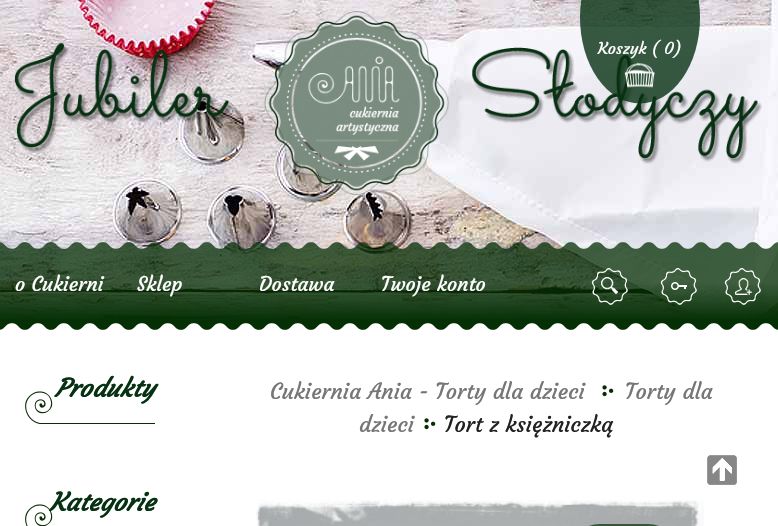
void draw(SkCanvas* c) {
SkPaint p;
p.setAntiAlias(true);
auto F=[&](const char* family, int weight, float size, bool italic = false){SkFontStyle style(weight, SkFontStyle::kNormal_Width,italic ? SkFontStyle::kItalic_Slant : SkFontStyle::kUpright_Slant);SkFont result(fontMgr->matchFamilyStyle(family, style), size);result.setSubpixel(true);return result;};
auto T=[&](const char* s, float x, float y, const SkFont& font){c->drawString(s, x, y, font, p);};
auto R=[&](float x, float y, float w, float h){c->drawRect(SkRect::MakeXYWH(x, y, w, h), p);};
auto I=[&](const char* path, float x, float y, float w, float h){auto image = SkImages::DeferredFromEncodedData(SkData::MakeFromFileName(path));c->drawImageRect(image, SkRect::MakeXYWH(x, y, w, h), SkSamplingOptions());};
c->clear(0xffffffff);
I("1.png",0,0,778,320);
I("2.png",15,11,747,184);
p.setColor(0xcc063112);
c->drawOval(SkRect::MakeXYWH(580,-68.5,120,172),p);
auto f1 = F("Courgette",400,16);
p.setColor(0xffffffff);
T("Koszyk ( 0)",598,54,f1);
I("3.png",624,62,31,26);
I("4.png",0,252,778,68);
I("5.png",0,242,778,10);
auto f2 = F("Courgette",400,20);
T("o Cukierni",15,291,f2);
T("Sklep",137,291,f2);
T("Dostawa",259,291,f2);
T("Twoje konto",381,291,f2);
I("6.png",591,268,37,37);
I("7.png",601,277,17,17);
I("8.png",660,268,37,37);
I("9.png",671,282,16,8);
I("10.png",724,268,37,37);
I("11.png",735,278,17,17);
I("12.png",0,320,778,10);
p.setColor(0xff092b06);
R(40,423,115,1);
I("13.png",25,391,28,33);
auto f3 = F("Courgette",700,25,true);
p.setColor(0xff063112);
T("Produkty",55,397,f3);
T("Kategorie",50,511,f3);
I("14.png",25,504,28,22);
auto f4 = F("Courgette",400,22);
p.setColor(0xff767676);
T("Cukiernia Ania - Torty dla dzieci",270,399,f4);
I("15.png",602,385,12,12);
T("Torty dla",625,399,f4);
T("dzieci",359,432,f4);
I("15.png",424,418,12,12);
p.setColor(0xff222222);
T("Tort z księżniczką",444,432,f4);
I("16.png",256,499,448,27);
p.setStroke(true);
p.setStrokeWidth(5);
p.setColor(0xff365537);
c->drawRoundRect(SkRect::MakeXYWH(571.5,526.5,105,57),52.5,52.5,p);
I("17.png",707,455,30,30);
}
